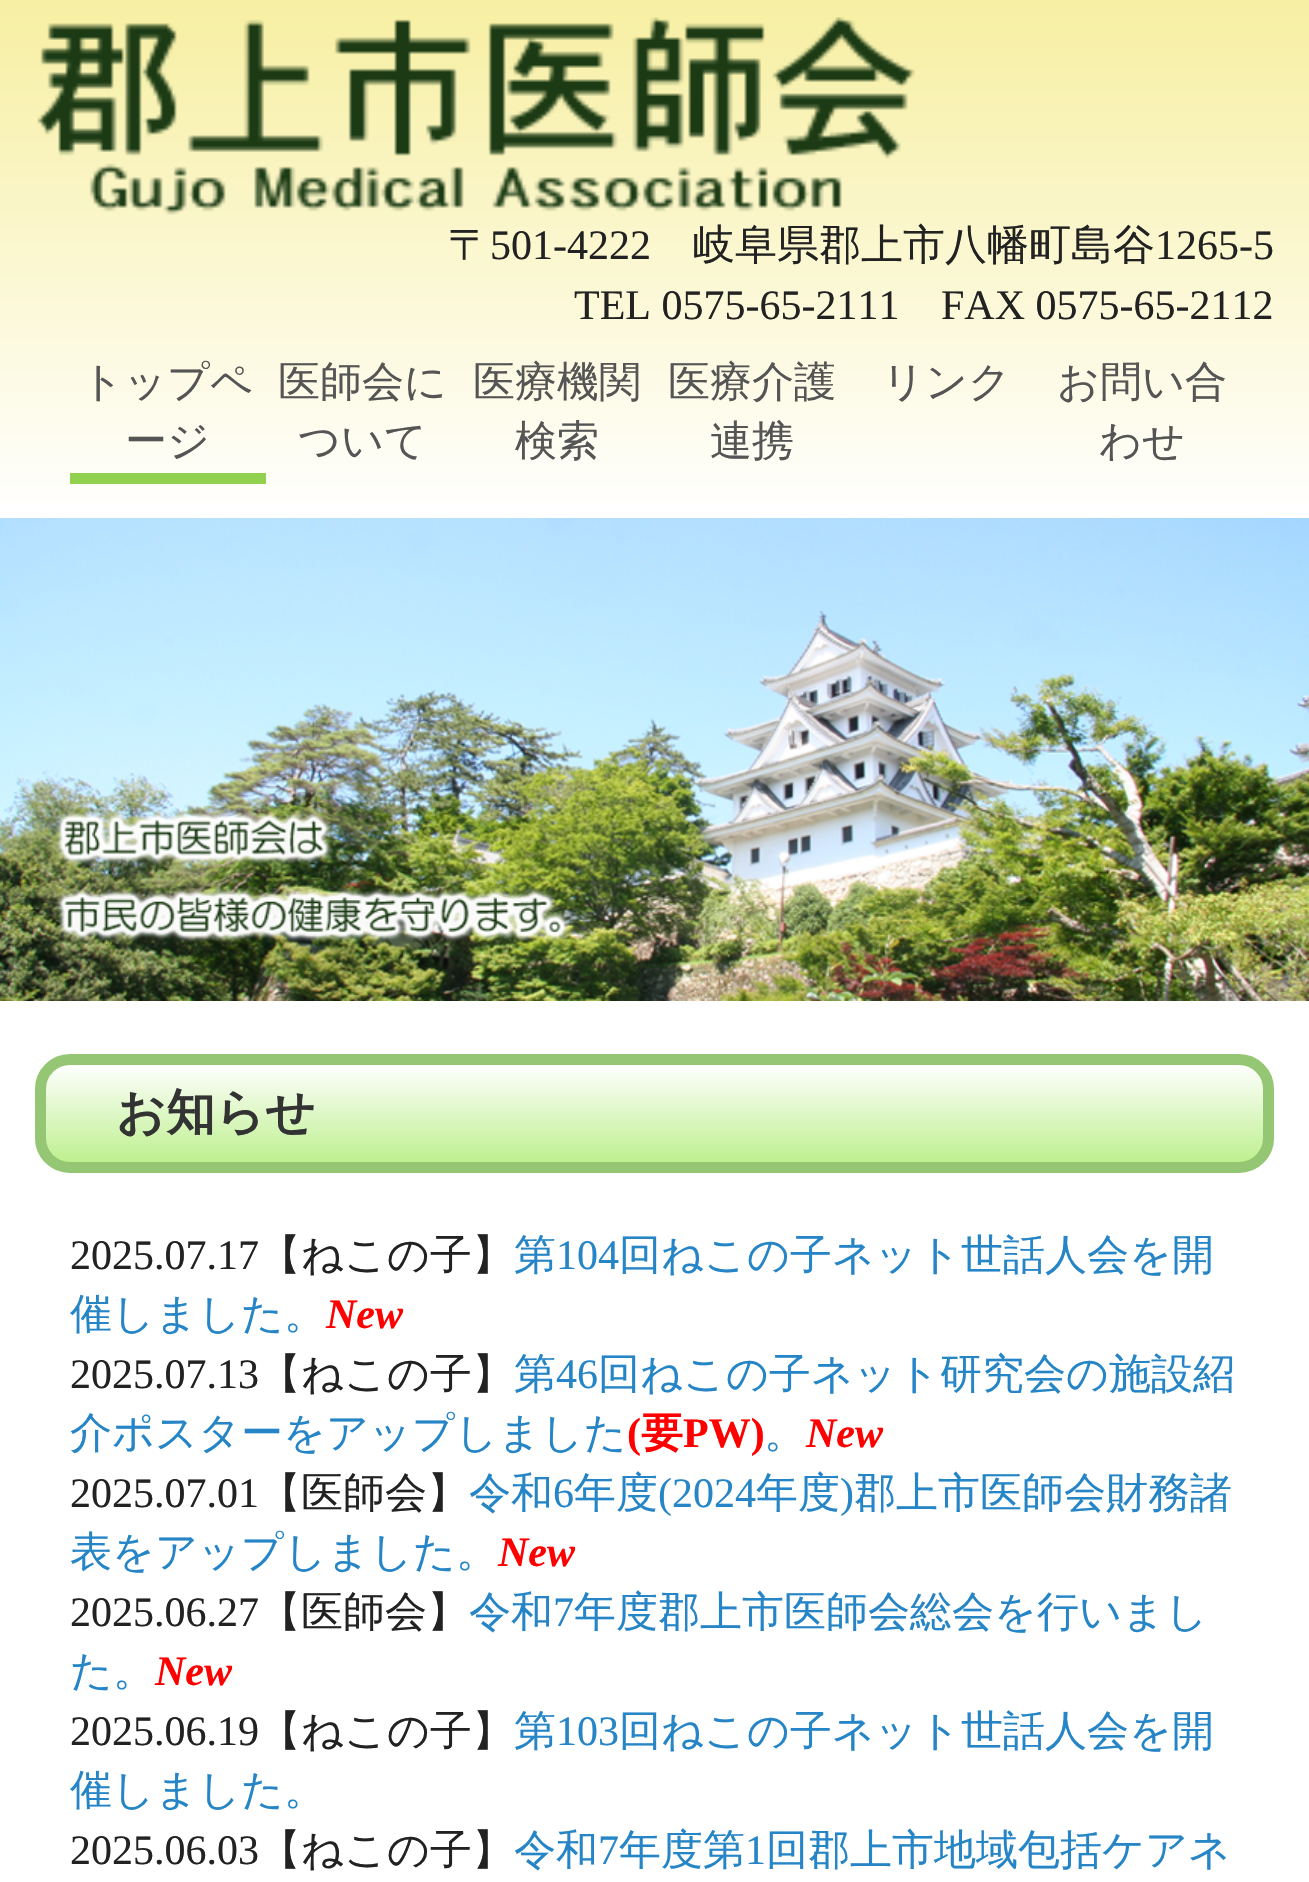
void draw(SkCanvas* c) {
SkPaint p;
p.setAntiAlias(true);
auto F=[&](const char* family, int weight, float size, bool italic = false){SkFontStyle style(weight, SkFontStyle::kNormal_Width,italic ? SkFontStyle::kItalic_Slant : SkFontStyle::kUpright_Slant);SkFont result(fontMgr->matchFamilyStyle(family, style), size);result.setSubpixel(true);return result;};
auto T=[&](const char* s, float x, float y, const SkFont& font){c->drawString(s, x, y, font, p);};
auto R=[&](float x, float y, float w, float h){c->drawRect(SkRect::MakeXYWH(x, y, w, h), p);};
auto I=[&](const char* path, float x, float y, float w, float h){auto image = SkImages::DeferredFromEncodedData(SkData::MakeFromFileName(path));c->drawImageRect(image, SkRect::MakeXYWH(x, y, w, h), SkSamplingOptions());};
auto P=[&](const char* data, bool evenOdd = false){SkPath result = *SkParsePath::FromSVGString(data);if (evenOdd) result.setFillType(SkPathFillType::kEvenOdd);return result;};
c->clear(0xffffffff);
{
const SkColor colors[] = {0xfff7efa2,0xffffffff};
const float stops[] = {0,1};
const SkPoint ends[] = {{655,0}, {655,518}};
p.setShader(SkGradientShader::MakeLinear(ends, colors, stops, 2, SkTileMode::kClamp));
p.setAlpha(255);
}
R(0,0,1309,504);
I("1.png",37,17,878,198);
auto f1 = F("WenQuanYi Zen Hei",500,42);
p.setShader(nullptr);
p.setColor(0xff222222);
T("〒",448,259,f1);
auto f2 = F("Liberation Serif",400,42);
T("501-4222",490,259,f2);
T("岐阜県郡上市八幡町島谷",693,259,f1);
T("1265-5",1155,259,f2);
T("TEL 0575-65-2111",574,319,f2);
T("FAX 0575-65-2112",941,319,f2);
p.setColor(0xff92d050);
R(70,473,196,11);
p.setColor(0xff555555);
T("トップペ",81,396,f1);
T("ージ",125,455,f1);
T("医師会に",278,396,f1);
T("ついて",298,455,f1);
T("医療機関",473,396,f1);
T("検索",515,455,f1);
T("医療介護",668,396,f1);
T("連携",710,455,f1);
T("リンク",882,396,f1);
T("お問い合",1057,396,f1);
T("わせ",1099,455,f1);
I("2.png",0,518,1309,483);
c->save();
c->clipPath(P("M70 1054h1169c19.5 0 35 15.5 35 35v49c0 19.5-15.5 35-35 35h-1169c-19.5 0-35-15.5-35-35v-49c0-19.5 15.5-35 35-35z"),true);
{
const SkColor colors[] = {0xffffffff,0xffbef08f};
const float stops[] = {0,1};
const SkPoint ends[] = {{655,1064}, {655,1162}};
p.setShader(SkGradientShader::MakeLinear(ends, colors, stops, 2, SkTileMode::kClamp));
p.setAlpha(255);
}
R(35,1064,1239,98);
c->restore();
p.setStroke(true);
p.setStrokeWidth(11);
p.setShader(nullptr);
p.setColor(0xff94c674);
c->drawRoundRect(SkRect::MakeXYWH(40.5,1059.5,1228,108),29.5,29.5,p);
auto f3 = F("WenQuanYi Zen Hei",700,49);
p.setStroke(false);
p.setColor(0xff333333);
T("お知らせ",116,1129,f3);
p.setColor(0xff222222);
T("2025.07.17",70,1269,f2);
T("【ねこの子】",259,1269,f1);
p.setColor(0xff2585c6);
T("第",514,1269,f1);
T("104",556,1269,f2);
T("回ねこの子ネット世話人会を開",619,1269,f1);
T("催しました。",70,1328,f1);
auto f4 = F("Liberation Serif",700,42,true);
p.setColor(0xffff0000);
T("New",326,1328,f4);
p.setColor(0xff222222);
T("2025.07.13",70,1388,f2);
T("【ねこの子】",259,1388,f1);
p.setColor(0xff2585c6);
T("第",514,1388,f1);
T("46",556,1388,f2);
T("回ねこの子ネット研究会の施設紹",598,1388,f1);
T("介ポスターをアップしました",70,1447,f1);
auto f5 = F("Liberation Serif",700,42);
p.setColor(0xffff0000);
T("(",627,1447,f5);
auto f6 = F("WenQuanYi Zen Hei",700,42);
T("要",641,1447,f6);
T("PW)",683,1447,f5);
p.setColor(0xff2585c6);
T("。",764,1447,f1);
p.setColor(0xffff0000);
T("New",806,1447,f4);
p.setColor(0xff222222);
T("2025.07.01",70,1507,f2);
T("【医師会】",259,1507,f1);
p.setColor(0xff2585c6);
T("令和",469,1507,f1);
T("6",553,1507,f2);
T("年度",574,1507,f1);
T("(2024",658,1507,f2);
T("年度",756,1507,f1);
T(")",840,1507,f2);
T("郡上市医師会財務諸",854,1507,f1);
T("表をアップしました。",70,1566,f1);
p.setColor(0xffff0000);
T("New",498,1566,f4);
p.setColor(0xff222222);
T("2025.06.27",70,1626,f2);
T("【医師会】",259,1626,f1);
p.setColor(0xff2585c6);
T("令和",469,1626,f1);
T("7",553,1626,f2);
T("年度郡上市医師会総会を行いまし",574,1626,f1);
T("た。",70,1685,f1);
p.setColor(0xffff0000);
T("New",155,1685,f4);
p.setColor(0xff222222);
T("2025.06.19",70,1745,f2);
T("【ねこの子】",259,1745,f1);
p.setColor(0xff2585c6);
T("第",514,1745,f1);
T("103",556,1745,f2);
T("回ねこの子ネット世話人会を開",619,1745,f1);
T("催しました。",70,1804,f1);
p.setColor(0xff222222);
T("2025.06.03",70,1864,f2);
T("【ねこの子】",259,1864,f1);
p.setColor(0xff2585c6);
T("令和",514,1864,f1);
T("7",598,1864,f2);
T("年度第",619,1864,f1);
T("1",745,1864,f2);
T("回郡上市地域包括ケアネ",766,1864,f1);
}
